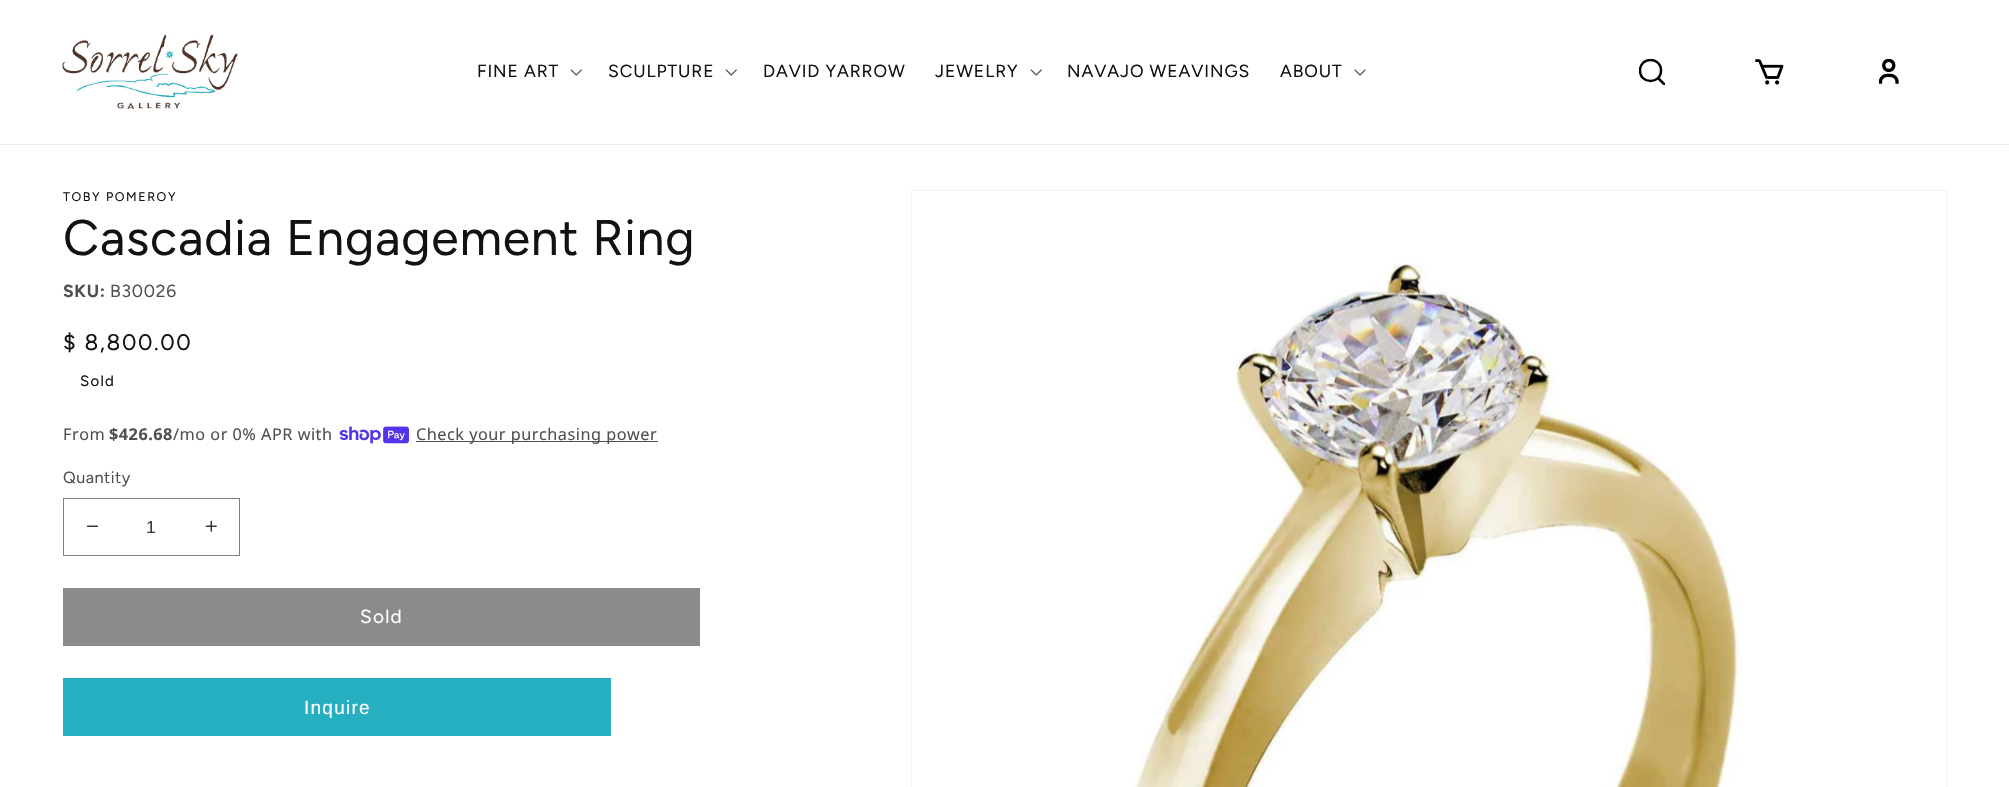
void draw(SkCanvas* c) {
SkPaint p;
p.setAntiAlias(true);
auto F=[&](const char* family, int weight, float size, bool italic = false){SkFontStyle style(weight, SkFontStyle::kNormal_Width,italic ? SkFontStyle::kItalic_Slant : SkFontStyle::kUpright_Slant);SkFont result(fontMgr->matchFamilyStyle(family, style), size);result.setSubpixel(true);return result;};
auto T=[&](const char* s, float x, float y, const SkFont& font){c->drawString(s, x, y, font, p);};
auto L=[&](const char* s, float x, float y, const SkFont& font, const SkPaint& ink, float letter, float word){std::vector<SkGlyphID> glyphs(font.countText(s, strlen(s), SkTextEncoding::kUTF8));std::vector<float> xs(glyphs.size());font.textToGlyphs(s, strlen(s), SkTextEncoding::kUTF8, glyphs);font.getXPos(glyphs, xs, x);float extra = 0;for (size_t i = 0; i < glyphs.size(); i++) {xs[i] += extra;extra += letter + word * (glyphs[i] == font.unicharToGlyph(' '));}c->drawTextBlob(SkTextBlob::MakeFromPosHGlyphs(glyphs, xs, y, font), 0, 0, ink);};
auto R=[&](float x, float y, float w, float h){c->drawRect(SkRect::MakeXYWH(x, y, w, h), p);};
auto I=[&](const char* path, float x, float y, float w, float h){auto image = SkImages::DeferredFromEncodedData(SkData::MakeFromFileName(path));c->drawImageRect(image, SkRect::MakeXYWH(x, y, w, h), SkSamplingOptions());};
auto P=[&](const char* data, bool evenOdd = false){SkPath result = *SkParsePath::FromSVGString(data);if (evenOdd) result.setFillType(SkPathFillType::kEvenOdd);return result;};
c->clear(0xffffffff);
p.setColor(0xffececec);
R(0,144,2009,1);
I("1.png",62,34,176,75);
auto f1 = F("Figtree",400,17.5);
p.setColor(0xff121212);
L("FINE ART",477,77,f1,p,.9,0);
I("2.png",570,69,12,7);
L("SCULPTURE",608,77,f1,p,.9,0);
I("2.png",725,69,12,7);
L("DAVID YARROW",763,77,f1,p,.9,0);
L("JEWELRY",935,77,f1,p,.9,0);
I("2.png",1030,69,12,7);
L("NAVAJO WEAVINGS",1067,77,f1,p,.9,0);
L("ABOUT",1280,77,f1,p,.9,0);
I("3.png",1354,69,12,7);
c->save();
c->clipRect(SkRect::MakeXYWH(1639,59,26,26));
p.setStroke(true);
p.setStrokeWidth(2.5);
p.setStrokeCap(SkPaint::kRound_Cap);
p.setColor(0xff000000);
c->drawPath(P("M1664 84l-6-6m3-7.5c0 14-21 14-21 0c0-14 21-14 21 0z"),p);
c->restore();
I("4.png",1755,59,29,26);
I("5.png",1879,59,20,25);
auto f2 = F("Figtree",400,12.5);
p.setStroke(false);
p.setColor(0xff121212);
L("TOBY POMEROY",63,201,f2,p,1.6,0);
auto f3 = F("Figtree",400,50);
L("Cascadia Engagement Ring",63,255,f3,p,.75,0);
auto f4 = F("Figtree",700,17.5);
p.setColor(0xff505050);
L("SKU:",63,297,f4,p,.75,0);
L("B30026",110,297,f1,p,.75,0);
auto f5 = F("Figtree",400,22.5);
p.setColor(0xff121212);
L("$ 8,800.00",63,350,f5,p,1.6,0);
auto f6 = F("Figtree",400,15);
L("Sold",80,386,f6,p,1.25,0);
auto f7 = F("Noto Sans",400,16.25);
p.setColor(0xff505050);
L("From",63,440,f7,p,.5,0);
auto f8 = F("Noto Sans",700,16.25);
L("$426.68",109,440,f8,p,.5,0);
L("/mo or 0% APR with",173,440,f7,p,.5,0);
I("6.png",339,426,70,18);
R(416,441,242,1);
L("Check your purchasing power",416,440,f7,p,.5,0);
auto f9 = F("Figtree",400,16.25);
L("Quantity",63,483,f9,p,.5,0);
I("7.png",86,525,13,2);
I("8.png",205,520,12,12);
p.setStroke(true);
p.setStrokeWidth(1);
p.setStrokeCap(SkPaint::kButt_Cap);
p.setColor(0xff7f7f7f);
c->drawRect(SkRect::MakeXYWH(63.5,498.5,176,57),p);
auto f10 = F("Liberation Sans",400,17.5);
p.setStroke(false);
p.setColor(0xff393939);
T("1",146,533,f10);
p.setColor(0xff8b8b8b);
R(63,588,637,58);
auto f11 = F("Figtree",400,19);
p.setColor(0xffffffff);
L("Sold",360,623,f11,p,1.25,0);
p.setColor(0xff25afc0);
R(63,678,548,58);
auto f12 = F("Liberation Sans",400,19);
p.setColor(0xffffffff);
L("Inquire",304,714,f12,p,1.25,0);
p.setStroke(true);
p.setColor(0xfff3f3f3);
c->drawRect(SkRect::MakeXYWH(911.5,190.5,1036,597),p);
I("9.png",1133,263,611,524);
}
